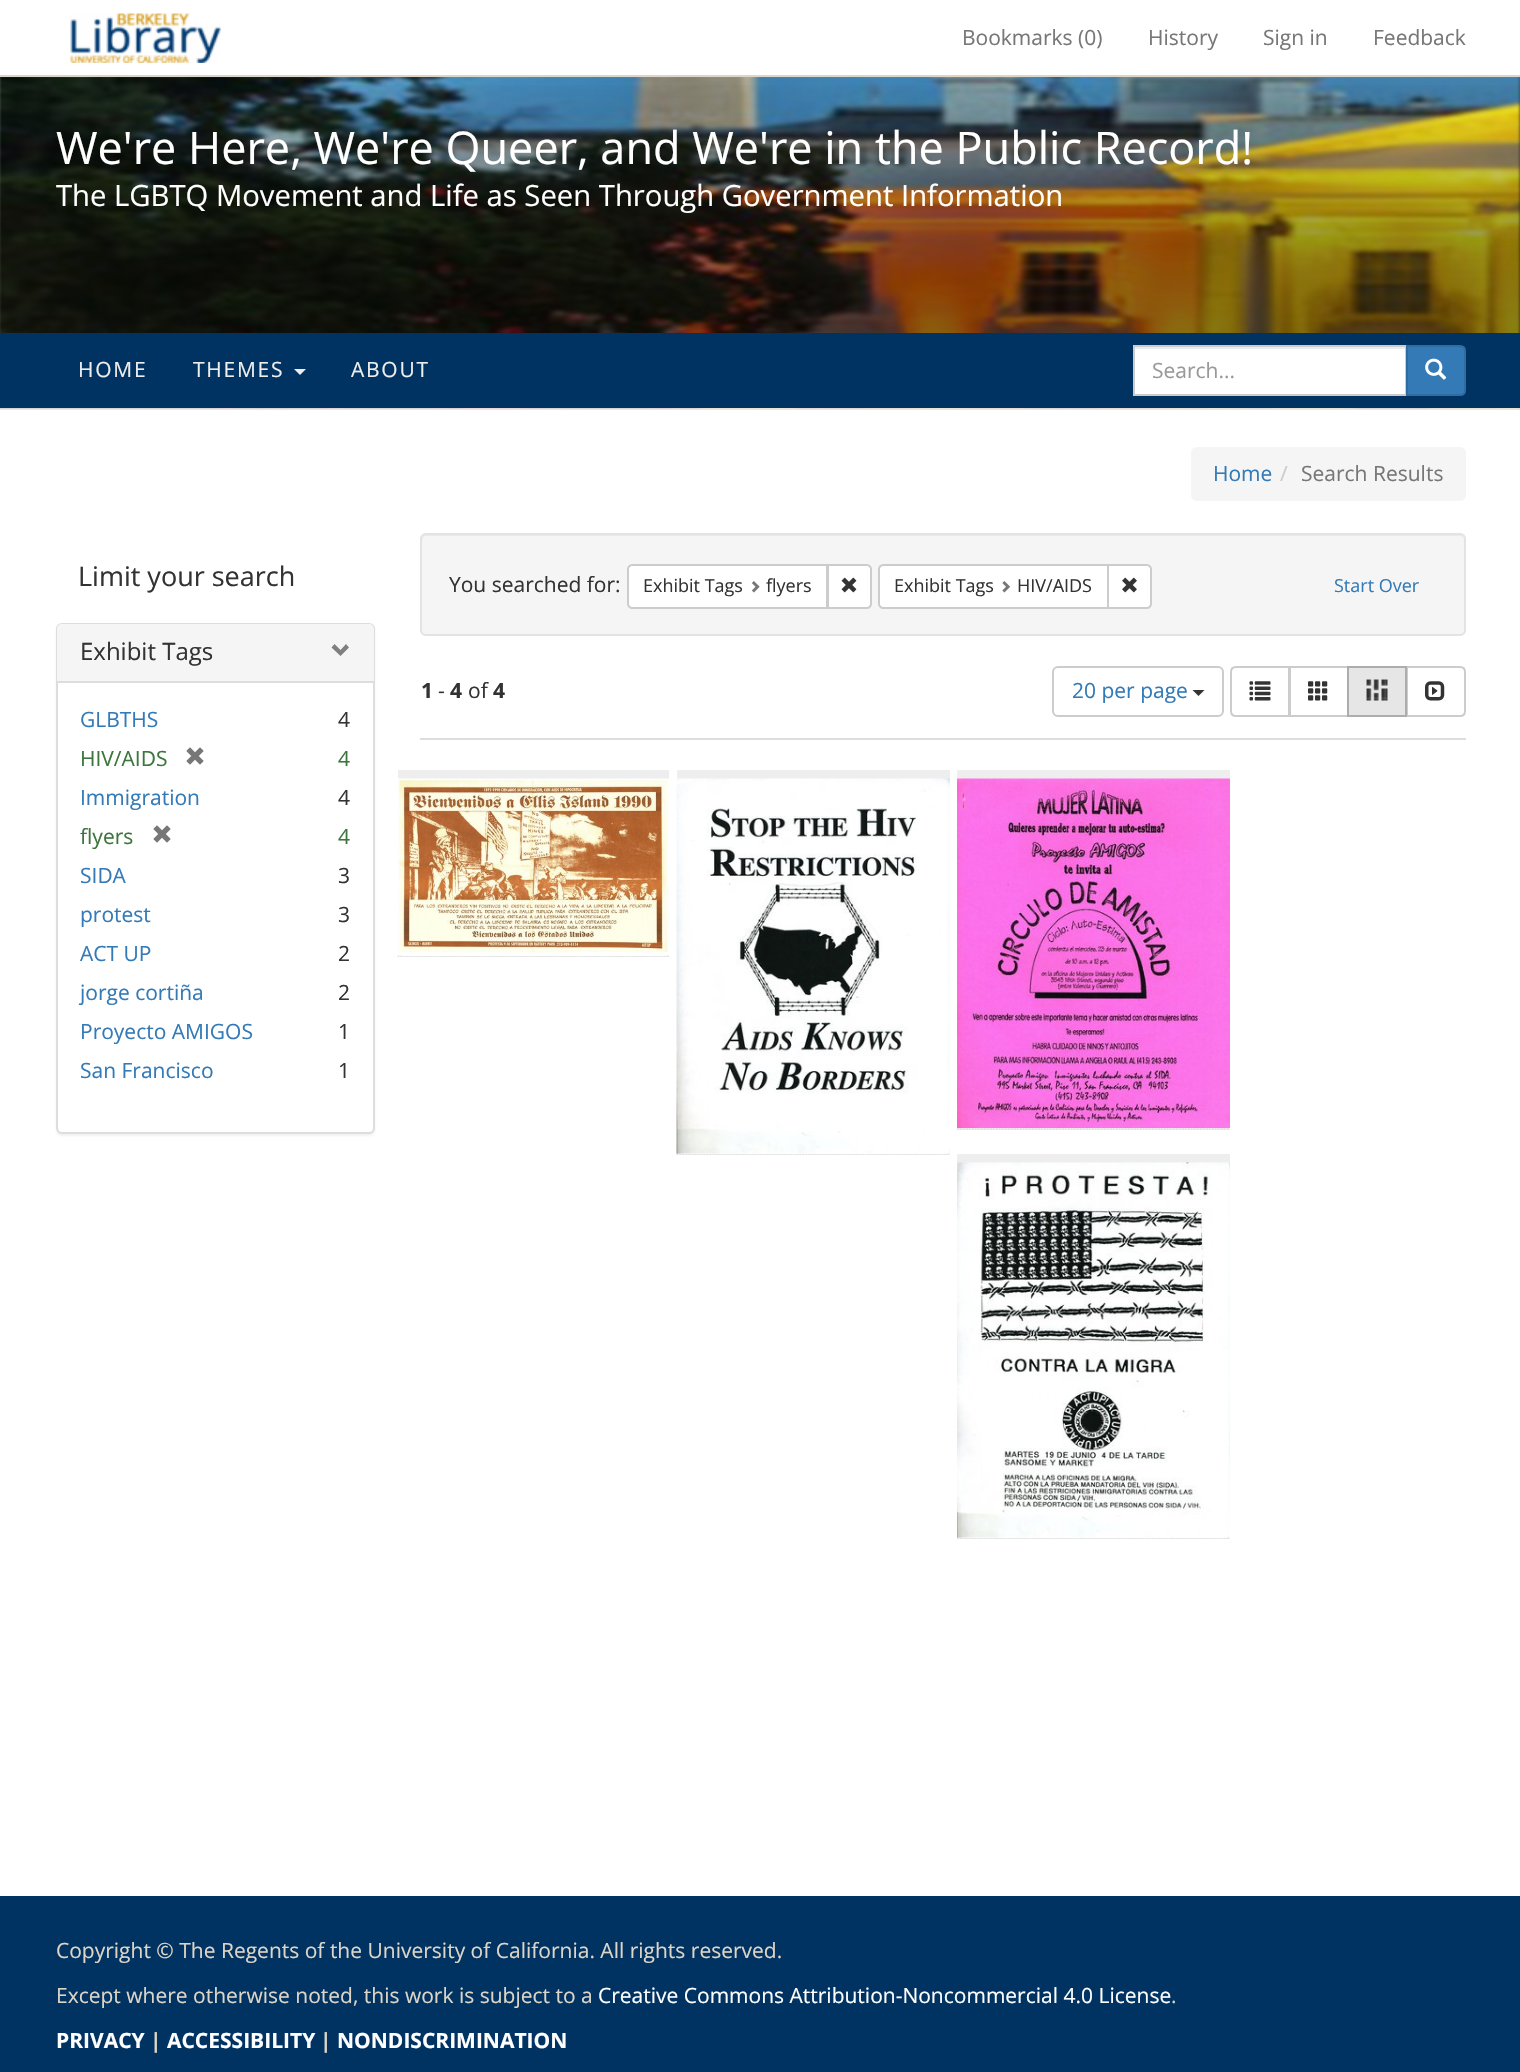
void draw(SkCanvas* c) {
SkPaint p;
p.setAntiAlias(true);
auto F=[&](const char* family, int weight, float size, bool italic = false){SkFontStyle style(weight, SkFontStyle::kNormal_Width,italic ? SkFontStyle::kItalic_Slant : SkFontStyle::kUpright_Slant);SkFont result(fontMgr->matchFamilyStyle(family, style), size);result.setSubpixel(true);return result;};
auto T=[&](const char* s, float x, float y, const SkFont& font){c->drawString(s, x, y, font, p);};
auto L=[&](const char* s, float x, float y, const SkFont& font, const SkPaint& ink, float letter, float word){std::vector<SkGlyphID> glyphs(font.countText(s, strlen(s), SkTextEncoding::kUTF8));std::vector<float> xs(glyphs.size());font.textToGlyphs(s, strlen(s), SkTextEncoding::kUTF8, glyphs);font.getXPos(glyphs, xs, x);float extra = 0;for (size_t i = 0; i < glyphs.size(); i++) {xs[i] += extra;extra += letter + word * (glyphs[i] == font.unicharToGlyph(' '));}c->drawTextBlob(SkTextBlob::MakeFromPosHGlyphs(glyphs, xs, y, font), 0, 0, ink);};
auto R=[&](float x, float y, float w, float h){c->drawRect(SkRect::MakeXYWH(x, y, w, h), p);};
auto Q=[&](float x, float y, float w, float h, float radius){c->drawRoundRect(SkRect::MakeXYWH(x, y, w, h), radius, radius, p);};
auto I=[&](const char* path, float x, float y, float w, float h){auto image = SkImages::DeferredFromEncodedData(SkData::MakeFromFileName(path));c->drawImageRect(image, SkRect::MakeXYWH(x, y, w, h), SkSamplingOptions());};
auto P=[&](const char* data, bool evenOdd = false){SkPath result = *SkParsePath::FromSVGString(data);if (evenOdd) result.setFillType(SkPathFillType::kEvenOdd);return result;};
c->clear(0xffffffff);
p.setColor(0xffe7e7e7);
R(0,408,1520,2);
I("2.png",0,77,1520,332);
p.setColor(0xff000000);
p.setMaskFilter(SkMaskFilter::MakeBlur(kNormal_SkBlurStyle, 1.5));
c->drawRect(SkRect::MakeXYWH(1520,75,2,332),p);
p.setMaskFilter(nullptr);
p.setColor(0xffffffff);
R(1517,72,3,3);
p.setColor(0xffddd5c7);
R(0,75,1520,2);
I("1.png",70,13,151,50);
auto f1 = F("Open Sans",400,21);
p.setColor(0xff777777);
T("Bookmarks (0)",962,45,f1);
T("History",1148,45,f1);
T("Sign in",1263,45,f1);
T("Feedback",1373,45,f1);
{
const SkColor colors[] = {0x00000000,0x66000000,0x80000000};
const float stops[] = {0,.5,1};
const SkPoint ends[] = {{761,76}, {761,408}};
p.setShader(SkGradientShader::MakeLinear(ends, colors, stops, 3, SkTileMode::kClamp));
p.setAlpha(255);
}
R(0,85,1520,248);
auto f2 = F("Open Sans",400,45);
p.setShader(nullptr);
p.setColor(0xffffffff);
T("We're Here, We're Queer, and We're in the Public Record!",56,164,f2);
auto f3 = F("Open Sans",400,29.25);
T("The LGBTQ Movement and Life as Seen Through Government Information",56,206,f3);
p.setColor(0xff003262);
R(0,333,1520,75);
p.setColor(0xffeeeeee);
L("HOME",78,377,f1,p,1.75,0);
L("THEMES",193,377,f1,p,1.75,0);
c->drawPath(P("M294 369h12l-6 6z"),p);
L("ABOUT",351,377,f1,p,1.75,0);
p.setColor(0xffffffff);
R(1135,349,270,45);
p.setColor(0xffececec);
R(1134,347,272,2);
p.setStroke(true);
p.setStrokeWidth(2);
p.setColor(0xffcccccc);
c->drawRect(SkRect::MakeXYWH(1134,346,272,49),p);
p.setStroke(false);
p.setColor(0xff999999);
T("Search...",1152,378,f1);
p.setColor(0xff337ab7);
c->drawPath(P("M1407 346h53c3 0 5 2 5 5v39c0 3-2 5-5 5h-53z"),p);
p.setStroke(true);
p.setColor(0xff2e6da4);
c->drawPath(P("M1407 346h53c3 0 5 2 5 5v39c0 3-2 5-5 5h-53z"),p);
I("3.png",1425,358,22,22);
p.setStroke(false);
p.setColor(0xfff5f5f5);
Q(1191,447,275,54,6);
p.setColor(0xff337ab7);
T("Home",1213,481,f1);
p.setColor(0xffcccccc);
T("/",1280,481,f1);
p.setColor(0xff777777);
T("Search Results",1301,481,f1);
auto f4 = F("Open Sans",400,27);
p.setColor(0xff333333);
T("Limit your search",78,586,f4);
p.setColor(0x0d000000);
p.setMaskFilter(SkMaskFilter::MakeBlur(kNormal_SkBlurStyle, 1));
c->drawRoundRect(SkRect::MakeXYWH(56,624,319,512),6,6,p);
p.setMaskFilter(nullptr);
p.setColor(0xffffffff);
c->drawRoundRect(SkRect::MakeXYWH(57,624,317,509),5,5,p);
p.setStroke(true);
p.setColor(0xffdddddd);
c->drawRoundRect(SkRect::MakeXYWH(57,624,317,509),5,5,p);
p.setStroke(false);
p.setColor(0xfff5f5f5);
c->drawPath(P("M62 624h307c3 0 5 2 5 5v52h-317v-52c0-3 2-5 5-5z"),p);
auto f5 = F("Open Sans",400,24);
p.setColor(0xff333333);
T("Exhibit Tags",80,660,f5);
p.setColor(0xff808080);
c->drawPath(P("M349 647.5l-8.5 8.5l-9-8.5l3-3.5l6 6l5.5-6z"),p);
p.setColor(0xffdddddd);
R(57,681,317,2);
p.setColor(0xff337ab7);
T("GLBTHS",80,727,f1);
p.setColor(0xff333333);
T("4",338,727,f1);
p.setColor(0xff3c763d);
T("HIV/AIDS",80,766,f1);
I("4.png",186,747,18,18);
T("4",338,766,f1);
p.setColor(0xff337ab7);
T("Immigration",80,805,f1);
p.setColor(0xff333333);
T("4",338,805,f1);
p.setColor(0xff3c763d);
T("flyers",80,844,f1);
I("4.png",153,825,18,18);
T("4",338,844,f1);
p.setColor(0xff337ab7);
T("SIDA",80,883,f1);
p.setColor(0xff333333);
T("3",338,883,f1);
p.setColor(0xff337ab7);
T("protest",80,922,f1);
p.setColor(0xff333333);
T("3",338,922,f1);
p.setColor(0xff337ab7);
T("ACT UP",80,961,f1);
p.setColor(0xff333333);
T("2",338,961,f1);
p.setColor(0xff337ab7);
T("jorge cortiña",80,1000,f1);
p.setColor(0xff333333);
T("2",338,1000,f1);
p.setColor(0xff337ab7);
T("Proyecto AMIGOS",80,1039,f1);
p.setColor(0xff333333);
T("1",338,1039,f1);
p.setColor(0xff337ab7);
T("San Francisco",80,1078,f1);
p.setColor(0xff333333);
T("1",338,1078,f1);
p.setColor(0xfff5f5f5);
Q(420,533,1046,103,6);
p.setColor(0xffe9e9e9);
c->drawPath(P("M426 536h1034c2 0 4 2 4 4c0-3-2-6-5-6h-1032c-3 0-5 3-5 6c0-2 2-4 4-4z"),p);
p.setStroke(true);
p.setColor(0xffe3e3e3);
c->drawRoundRect(SkRect::MakeXYWH(421,534,1044,101),5,5,p);
p.setStroke(false);
p.setColor(0xff333333);
T("You searched for:",449,592,f1);
p.setColor(0xffffffff);
c->drawPath(P("M632 565h195v43h-195c-2 0-4-2-4-4v-35c0-2 2-4 4-4z"),p);
p.setStroke(true);
p.setColor(0xffcccccc);
c->drawPath(P("M632 565h195v43h-195c-2 0-4-2-4-4v-35c0-2 2-4 4-4z"),p);
auto f6 = F("Open Sans",400,18);
p.setStroke(false);
p.setColor(0xff333333);
T("Exhibit Tags",643,592,f6);
I("5.png",751,581,9,12);
T("flyers",766,592,f6);
p.setColor(0xffffffff);
c->drawPath(P("M828 565h39c2 0 4 2 4 4v35c0 2-2 4-4 4h-39z"),p);
p.setStroke(true);
p.setColor(0xffcccccc);
c->drawPath(P("M828 565h39c2 0 4 2 4 4v35c0 2-2 4-4 4h-39z"),p);
I("6.png",841,577,16,16);
p.setStroke(false);
p.setColor(0xffffffff);
c->drawPath(P("M883 565h225v43h-225c-2 0-4-2-4-4v-35c0-2 2-4 4-4z"),p);
p.setStroke(true);
p.setColor(0xffcccccc);
c->drawPath(P("M883 565h225v43h-225c-2 0-4-2-4-4v-35c0-2 2-4 4-4z"),p);
p.setStroke(false);
p.setColor(0xff333333);
T("Exhibit Tags",894,592,f6);
I("7.png",1002,581,9,12);
T("HIV/AIDS",1017,592,f6);
p.setColor(0xffffffff);
c->drawPath(P("M1108 565h39c2 0 4 2 4 4v35c0 2-2 4-4 4h-39z"),p);
p.setStroke(true);
p.setColor(0xffcccccc);
c->drawPath(P("M1108 565h39c2 0 4 2 4 4v35c0 2-2 4-4 4h-39z"),p);
I("8.png",1122,577,15,16);
p.setStroke(false);
p.setColor(0xff337ab7);
T("Start Over",1334,592,f6);
p.setColor(0xffdddddd);
R(420,738,1046,2);
auto f7 = F("Open Sans",700,21);
p.setColor(0xff333333);
T("1",421,698,f7);
T("-",438,698,f1);
T("4",450,698,f7);
T("of",468,698,f1);
T("4",493,698,f7);
p.setStroke(true);
p.setColor(0xffcccccc);
c->drawRoundRect(SkRect::MakeXYWH(1053,667,170,49),5,5,p);
p.setStroke(false);
p.setColor(0xff337ab7);
T("20 per page",1072,698,f1);
p.setColor(0xff333333);
c->drawPath(P("M1192.5 690h12l-6 6z"),p);
p.setStroke(true);
p.setColor(0xffcccccc);
c->drawPath(P("M1236 667h53v49h-53c-3 0-5-2-5-5v-39c0-3 2-5 5-5z"),p);
I("9.png",1249,681,22,20);
c->drawRect(SkRect::MakeXYWH(1290,667,58,49),p);
I("10.png",1308,681,20,20);
c->drawPath(P("M1407 667h53c3 0 5 2 5 5v39c0 3-2 5-5 5h-53z"),p);
p.setStroke(false);
p.setColor(0xffe6e6e6);
c->drawRect(SkRect::MakeXYWH(1348,667,58,49),p);
p.setStroke(true);
p.setColor(0xffadadad);
c->drawRect(SkRect::MakeXYWH(1348,667,58,49),p);
I("11.png",1366,679,22,22);
I("12.png",1425,681,20,20);
p.setStroke(false);
p.setColor(0xffeeeeee);
R(398,770,271,187);
p.setStroke(true);
p.setStrokeWidth(1.5);
p.setColor(0xffdddddd);
p.setPathEffect(SkDashPathEffect::Make({{1.5f,1.5f}}, 0));
c->drawPath(P("M397.5 956h271.5"),p);
p.setPathEffect(nullptr);
p.setStroke(false);
p.setColor(0xffffffff);
Q(398,779,271,177,6);
I("13.png",397,778,272,178);
p.setColor(0xffeeeeee);
R(677,770,273,385);
p.setStroke(true);
p.setColor(0xffdddddd);
p.setPathEffect(SkDashPathEffect::Make({{1.5f,1.5f}}, 0));
c->drawPath(P("M676.5 1154h273"),p);
p.setPathEffect(nullptr);
p.setStroke(false);
p.setColor(0xffffffff);
Q(677,779,273,375,6);
I("14.png",676,778,274,376);
p.setColor(0xffeeeeee);
R(957,770,273,360);
p.setStroke(true);
p.setColor(0xffdddddd);
p.setPathEffect(SkDashPathEffect::Make({{1.5f,1.5f}}, 0));
c->drawPath(P("M957 1129h273"),p);
p.setPathEffect(nullptr);
I("15.png",957,778,273,350);
p.setStroke(false);
p.setColor(0xffeeeeee);
R(957,1154,273,385);
p.setStroke(true);
p.setColor(0xffdddddd);
p.setPathEffect(SkDashPathEffect::Make({{1.5f,1.5f}}, 0));
c->drawPath(P("M957 1538h273"),p);
p.setPathEffect(nullptr);
p.setStroke(false);
p.setColor(0xffffffff);
Q(957,1163,273,375,6);
I("16.png",957,1162,273,376);
p.setColor(0xff003262);
R(0,1896,1520,176);
p.setColor(0xffddd5c7);
T("Copyright © The Regents of the University of California. All rights reserved.",56,1958,f1);
T("Except where otherwise noted, this work is subject to a",56,2003,f1);
p.setColor(0xffffffff);
T("Creative Commons Attribution-Noncommercial 4.0 License",598,2003,f1);
p.setColor(0xffddd5c7);
T(".",1171,2003,f1);
p.setColor(0xffffffff);
T("PRIVACY",56,2048,f7);
p.setColor(0xffddd5c7);
T("|",150,2048,f7);
p.setColor(0xffffffff);
T("ACCESSIBILITY",167,2048,f7);
p.setColor(0xffddd5c7);
T("|",320,2048,f7);
p.setColor(0xffffffff);
T("NONDISCRIMINATION",337,2048,f7);
}
